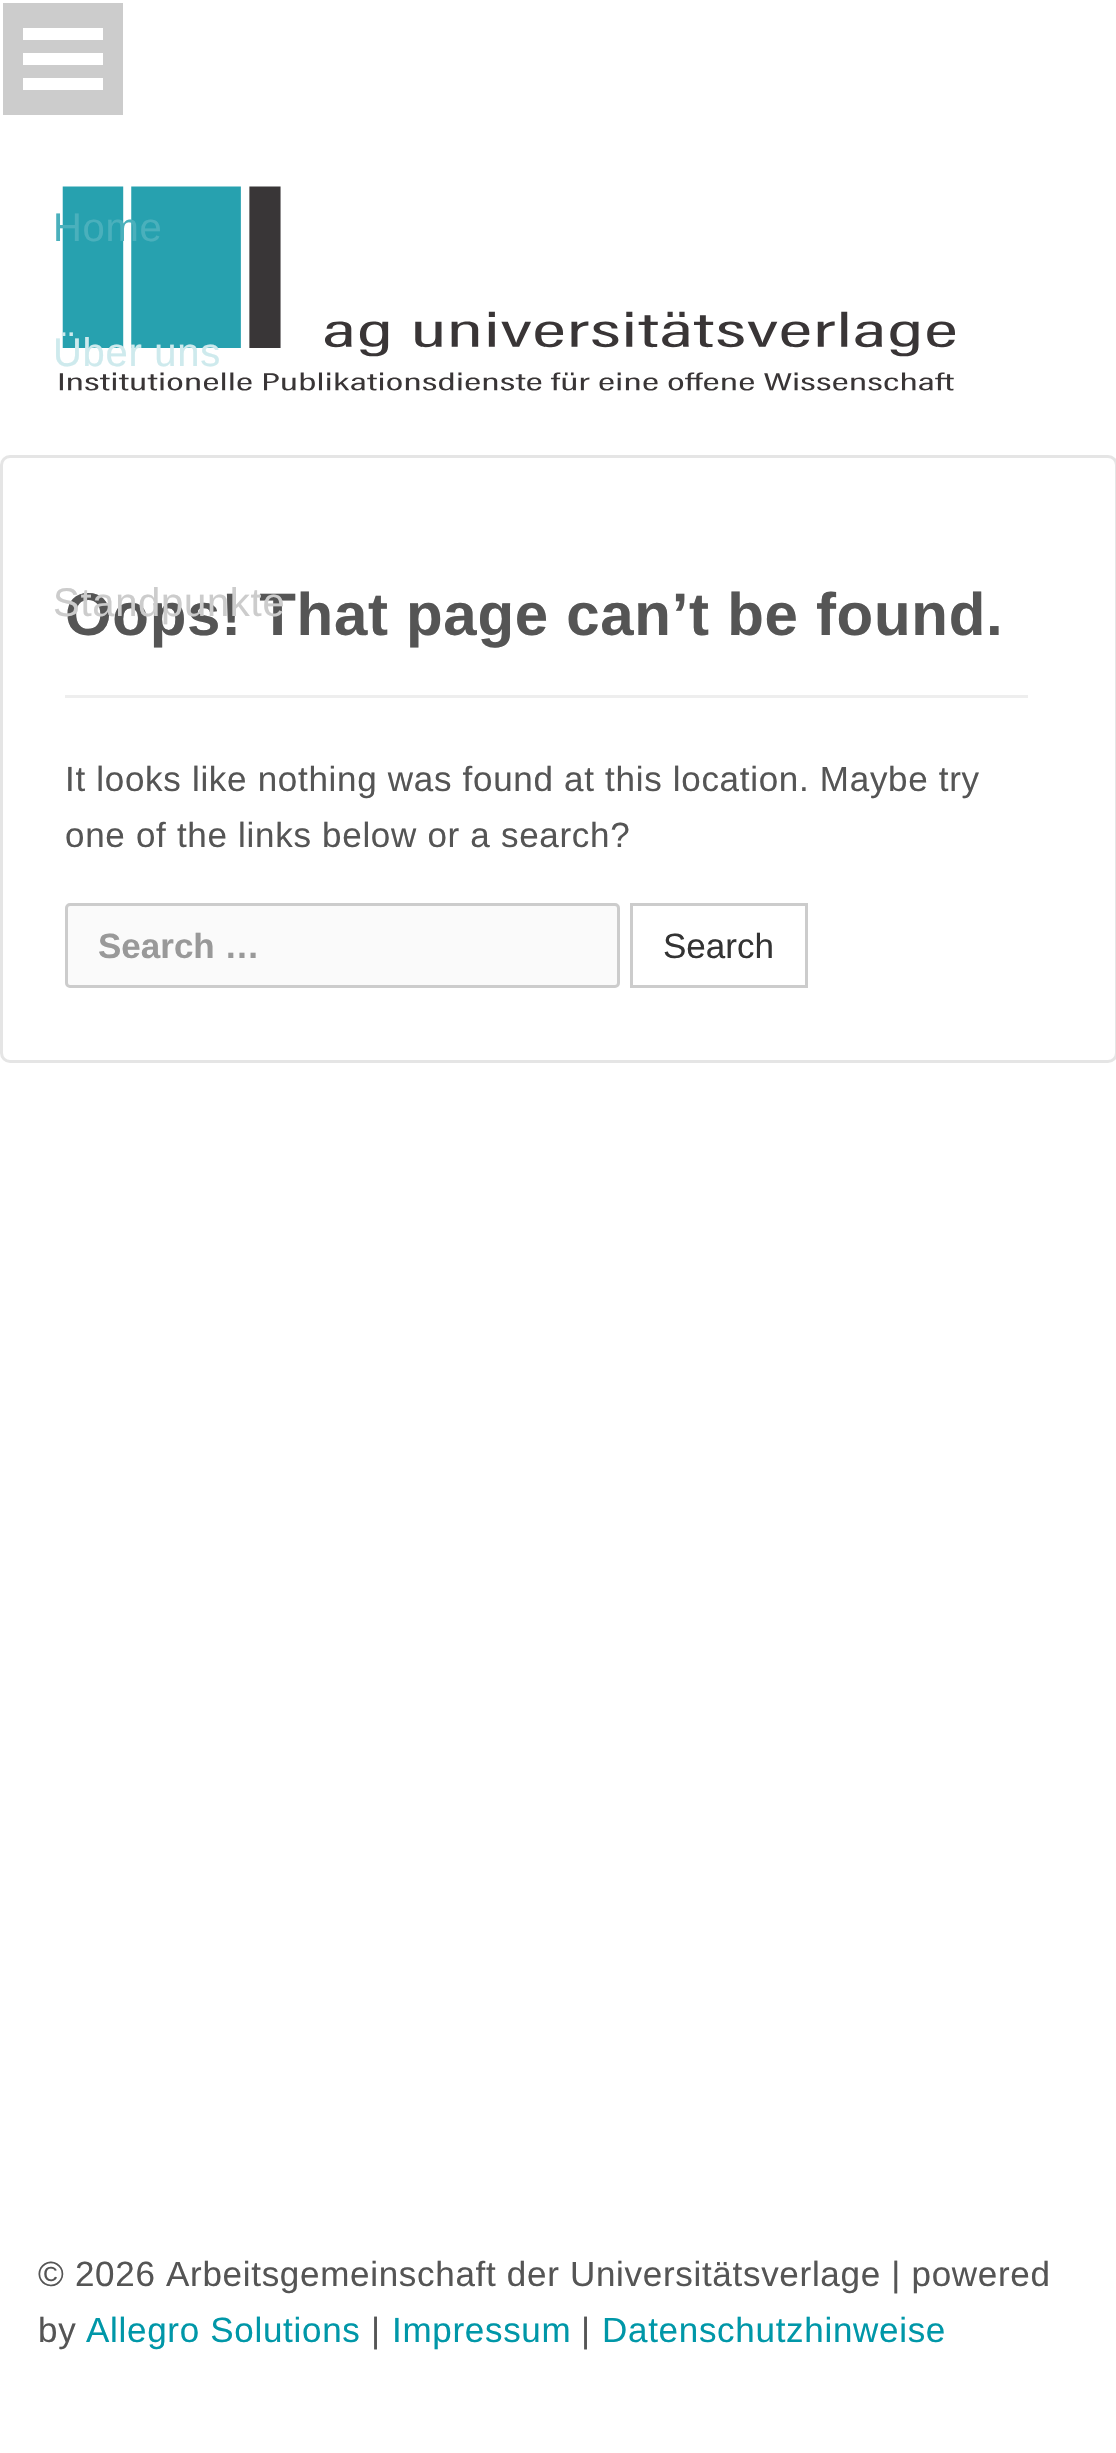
void draw(SkCanvas* c) {
SkPaint p;
p.setAntiAlias(true);
auto F=[&](const char* family, int weight, float size, bool italic = false){SkFontStyle style(weight, SkFontStyle::kNormal_Width,italic ? SkFontStyle::kItalic_Slant : SkFontStyle::kUpright_Slant);SkFont result(fontMgr->matchFamilyStyle(family, style), size);result.setSubpixel(true);return result;};
auto T=[&](const char* s, float x, float y, const SkFont& font){c->drawString(s, x, y, font, p);};
auto L=[&](const char* s, float x, float y, const SkFont& font, const SkPaint& ink, float letter, float word){std::vector<SkGlyphID> glyphs(font.countText(s, strlen(s), SkTextEncoding::kUTF8));std::vector<float> xs(glyphs.size());font.textToGlyphs(s, strlen(s), SkTextEncoding::kUTF8, glyphs);font.getXPos(glyphs, xs, x);float extra = 0;for (size_t i = 0; i < glyphs.size(); i++) {xs[i] += extra;extra += letter + word * (glyphs[i] == font.unicharToGlyph(' '));}c->drawTextBlob(SkTextBlob::MakeFromPosHGlyphs(glyphs, xs, y, font), 0, 0, ink);};
auto R=[&](float x, float y, float w, float h){c->drawRect(SkRect::MakeXYWH(x, y, w, h), p);};
auto I=[&](const char* path, float x, float y, float w, float h){auto image = SkImages::DeferredFromEncodedData(SkData::MakeFromFileName(path));c->drawImageRect(image, SkRect::MakeXYWH(x, y, w, h), SkSamplingOptions());};
c->clear(0xffffffff);
I("1.png",59,186,896,205);
p.setColor(0xffcccccc);
R(3,3,120,112);
p.setColor(0xffffffff);
R(23,78,80,12);
R(23,53,80,12);
R(23,28,80,12);
auto f1 = F("Liberation Sans",400,40);
p.setColor(0xff4ab0bc);
L("Home",53,241,f1,p,.7,0);
p.setColor(0xffceeaed);
L("Über uns",53,366,f1,p,.7,0);
p.setStroke(true);
p.setStrokeWidth(3);
p.setColor(0xffe5e5e5);
c->drawRoundRect(SkRect::MakeXYWH(1.5,456.5,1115,605),8.5,8.5,p);
auto f2 = F("Liberation Sans",700,60);
p.setStroke(false);
p.setColor(0xff555555);
L("Oops! That page can’t be found.",65,635,f2,p,.7,0);
p.setColor(0xffcccccc);
L("Standpunkte",53,616,f1,p,.7,0);
p.setColor(0xffeeeeee);
R(65,695,963,3);
auto f3 = F("Liberation Sans",400,35);
p.setColor(0xff555555);
L("It looks like nothing was found at this location. Maybe try",65,791,f3,p,.7,0);
L("one of the links below or a search?",65,847,f3,p,.7,0);
p.setColor(0xfffafafa);
c->drawRoundRect(SkRect::MakeXYWH(66.5,904.5,552,82),3.5,3.5,p);
p.setStroke(true);
p.setColor(0xffcccccc);
c->drawRoundRect(SkRect::MakeXYWH(66.5,904.5,552,82),3.5,3.5,p);
auto f4 = F("Liberation Sans",700,35);
p.setStroke(false);
p.setColor(0xff999999);
T("Search …",98,958,f4);
p.setStroke(true);
p.setColor(0xffcccccc);
c->drawRect(SkRect::MakeXYWH(631.5,904.5,175,82),p);
p.setStroke(false);
p.setColor(0xff333333);
T("Search",663,958,f3);
p.setColor(0xff555555);
L("© 2026 Arbeitsgemeinschaft der Universitätsverlage | powered",38,2286,f3,p,.7,0);
L("by",38,2342,f3,p,.7,0);
p.setColor(0xff0097a8);
L("Allegro Solutions",86,2342,f3,p,.7,0);
p.setColor(0xff555555);
L("|",371,2342,f3,p,.7,0);
p.setColor(0xff0097a8);
L("Impressum",392,2342,f3,p,.7,0);
p.setColor(0xff555555);
L("|",581,2342,f3,p,.7,0);
p.setColor(0xff0097a8);
L("Datenschutzhinweise",602,2342,f3,p,.7,0);
}
